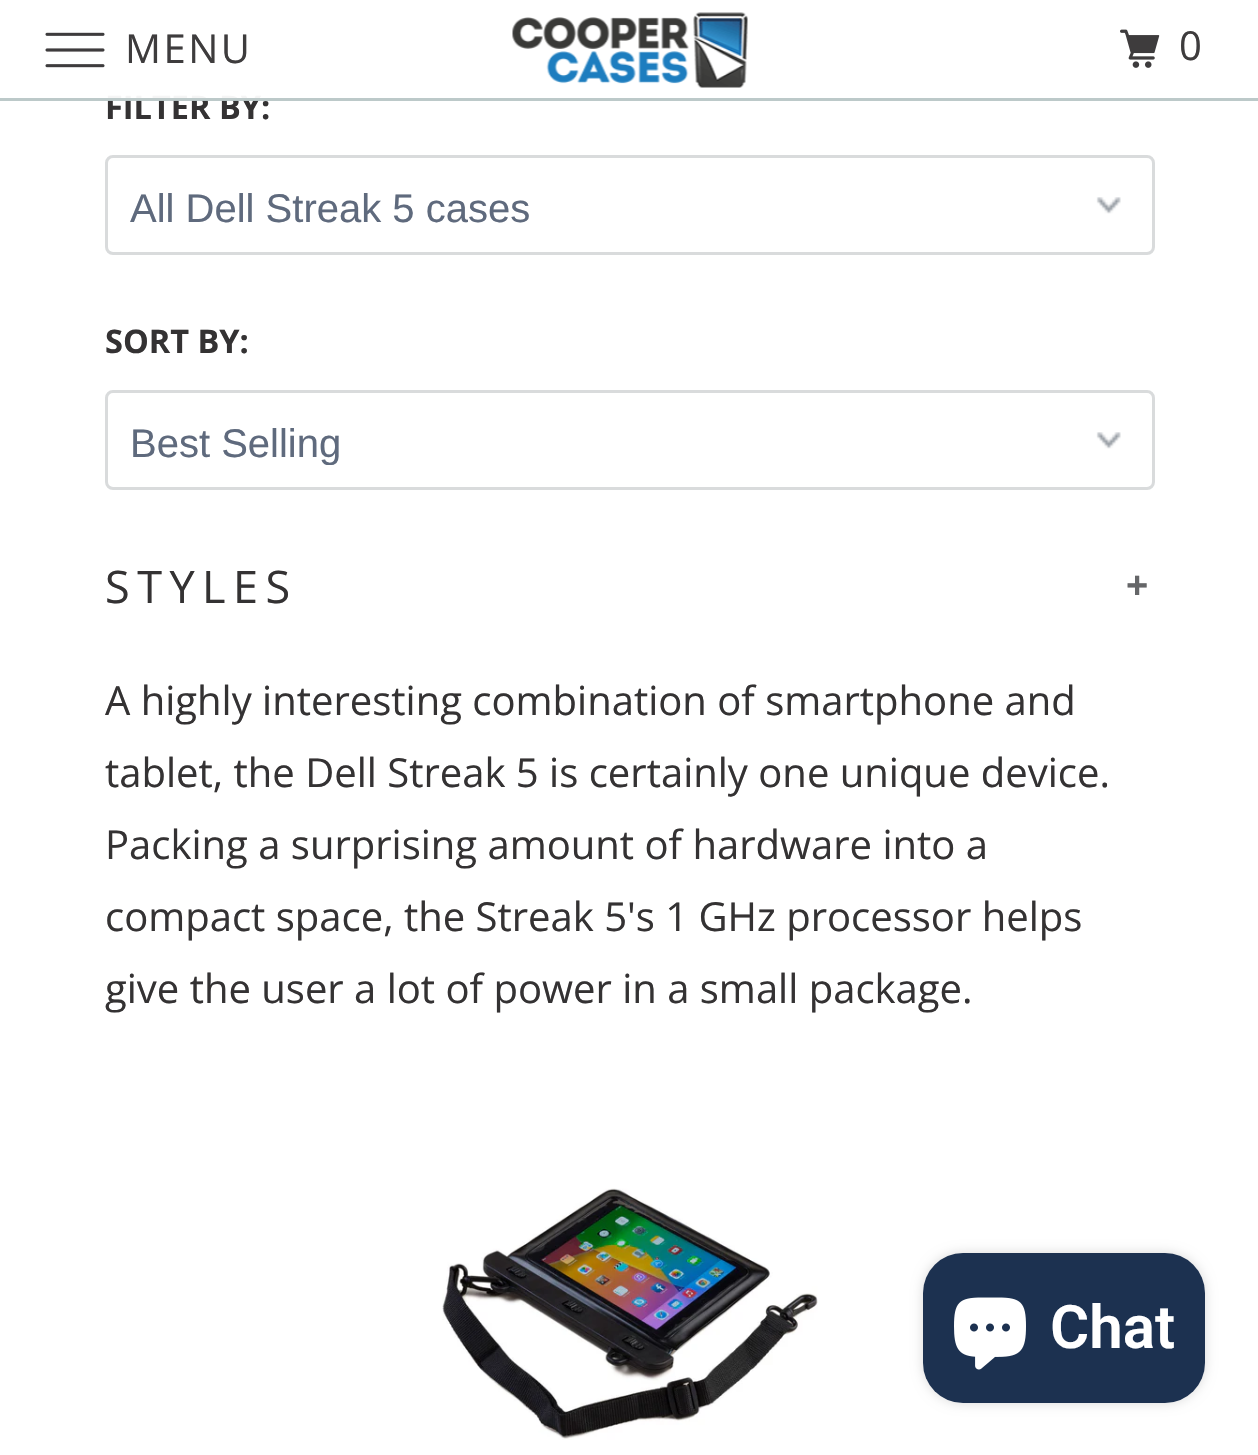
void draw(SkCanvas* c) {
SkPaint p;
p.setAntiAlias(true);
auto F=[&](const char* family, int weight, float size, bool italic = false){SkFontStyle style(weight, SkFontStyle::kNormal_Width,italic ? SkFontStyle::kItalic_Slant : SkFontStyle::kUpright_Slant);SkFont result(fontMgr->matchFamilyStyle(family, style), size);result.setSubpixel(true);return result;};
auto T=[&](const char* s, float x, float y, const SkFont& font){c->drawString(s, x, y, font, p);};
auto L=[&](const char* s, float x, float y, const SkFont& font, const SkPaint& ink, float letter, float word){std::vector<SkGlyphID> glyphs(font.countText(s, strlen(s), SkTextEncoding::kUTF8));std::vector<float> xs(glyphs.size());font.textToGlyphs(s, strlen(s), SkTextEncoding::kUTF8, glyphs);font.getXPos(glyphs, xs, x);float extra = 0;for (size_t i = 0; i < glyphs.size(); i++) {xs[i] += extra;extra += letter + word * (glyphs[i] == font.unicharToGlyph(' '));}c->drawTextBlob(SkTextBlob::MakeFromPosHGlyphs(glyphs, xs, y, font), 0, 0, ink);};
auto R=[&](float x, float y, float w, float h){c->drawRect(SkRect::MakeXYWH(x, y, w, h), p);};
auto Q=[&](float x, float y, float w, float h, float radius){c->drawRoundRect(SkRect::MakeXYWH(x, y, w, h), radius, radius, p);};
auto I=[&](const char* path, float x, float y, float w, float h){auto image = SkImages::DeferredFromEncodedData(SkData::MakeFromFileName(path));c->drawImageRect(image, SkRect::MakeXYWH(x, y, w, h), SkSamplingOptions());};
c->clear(0xffffffff);
auto f1 = F("Open Sans",700,32.5);
p.setColor(0xff343233);
T("FILTER BY:",105,119,f1);
p.setColor(0xf2ffffff);
R(107,95,154,5);
p.setColor(0xf2b8c6c6);
R(0,98,1258,3);
I("1.png",45,32,60,36);
auto f2 = F("Open Sans",400,40);
p.setColor(0xff3e3c3d);
L("MENU",125,63,f2,p,2.5,0);
I("2.png",512,12,236,76);
I("3.png",1120,29,40,39);
L("0",1179,60,f2,p,2.5,0);
I("4.png",1096,197,25,17);
p.setStroke(true);
p.setStrokeWidth(3);
p.setColor(0xffd9dbdc);
c->drawRoundRect(SkRect::MakeXYWH(106.5,156.5,1047,97),6.5,6.5,p);
auto f3 = F("Liberation Sans",400,40);
p.setStroke(false);
p.setColor(0xff5f6a7d);
T("All Dell Streak 5 cases",130,222,f3);
p.setColor(0xff343233);
T("SORT BY:",105,353,f1);
I("4.png",1096,432,25,17);
p.setStroke(true);
p.setColor(0xffd9dbdc);
c->drawRoundRect(SkRect::MakeXYWH(106.5,391.5,1047,97),6.5,6.5,p);
c->save();
c->clipRect(SkRect::MakeXYWH(130,423,948,42));
p.setStroke(false);
p.setColor(0xff5f6a7d);
T("Best Selling",130,457,f3);
c->restore();
auto f4 = F("Open Sans",400,45);
p.setColor(0xff343233);
L("STYLES",105,603,f4,p,7.5,0);
auto f5 = F("Liberation Sans",700,38);
p.setColor(0xff656668);
L("+",1126,598,f5,p,7.5,0);
p.setColor(0xff343233);
T("A highly interesting combination of smartphone and",105,715,f2);
T("tablet, the Dell Streak 5 is certainly one unique device.",105,787,f2);
T("Packing a surprising amount of hardware into a",105,859,f2);
T("compact space, the Streak 5's 1 GHz processor helps",105,931,f2);
T("give the user a lot of power in a small package.",105,1003,f2);
I("5.png",442,1188,376,252);
p.setColor(0x26000000);
p.setMaskFilter(SkMaskFilter::MakeBlur(kNormal_SkBlurStyle, 6));
c->drawRoundRect(SkRect::MakeXYWH(923,1253,282,150),40,40,p);
p.setMaskFilter(nullptr);
p.setColor(0xff1c3150);
Q(923,1253,282,150,40);
I("6.png",954,1297,72,73);
auto f6 = F("Roboto",600,60);
p.setColor(0xffffffff);
T("Chat",1050,1348,f6);
}
